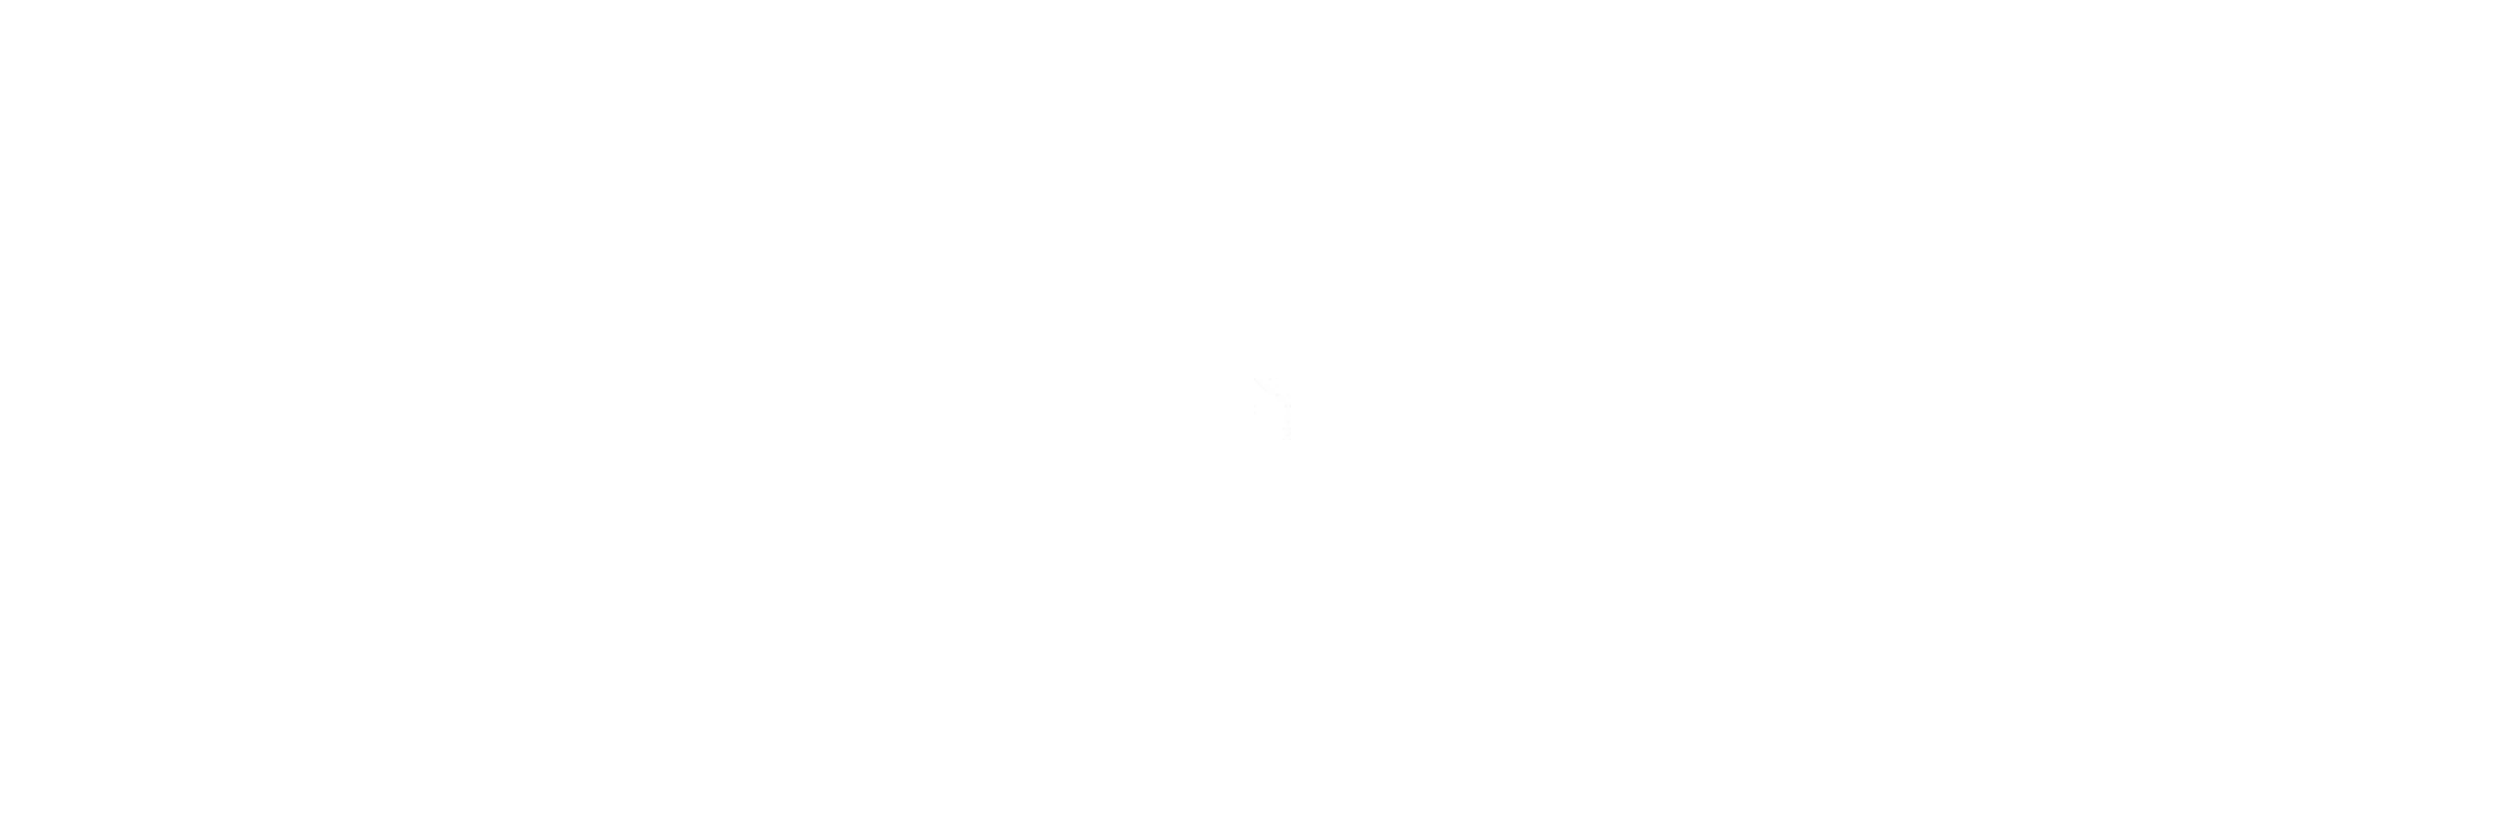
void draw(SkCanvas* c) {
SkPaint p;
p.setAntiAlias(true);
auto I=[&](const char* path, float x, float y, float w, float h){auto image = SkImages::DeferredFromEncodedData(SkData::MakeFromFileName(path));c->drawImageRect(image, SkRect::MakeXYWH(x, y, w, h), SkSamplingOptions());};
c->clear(0xffffffff);
I("1.png",1254,378,37,62);
}
